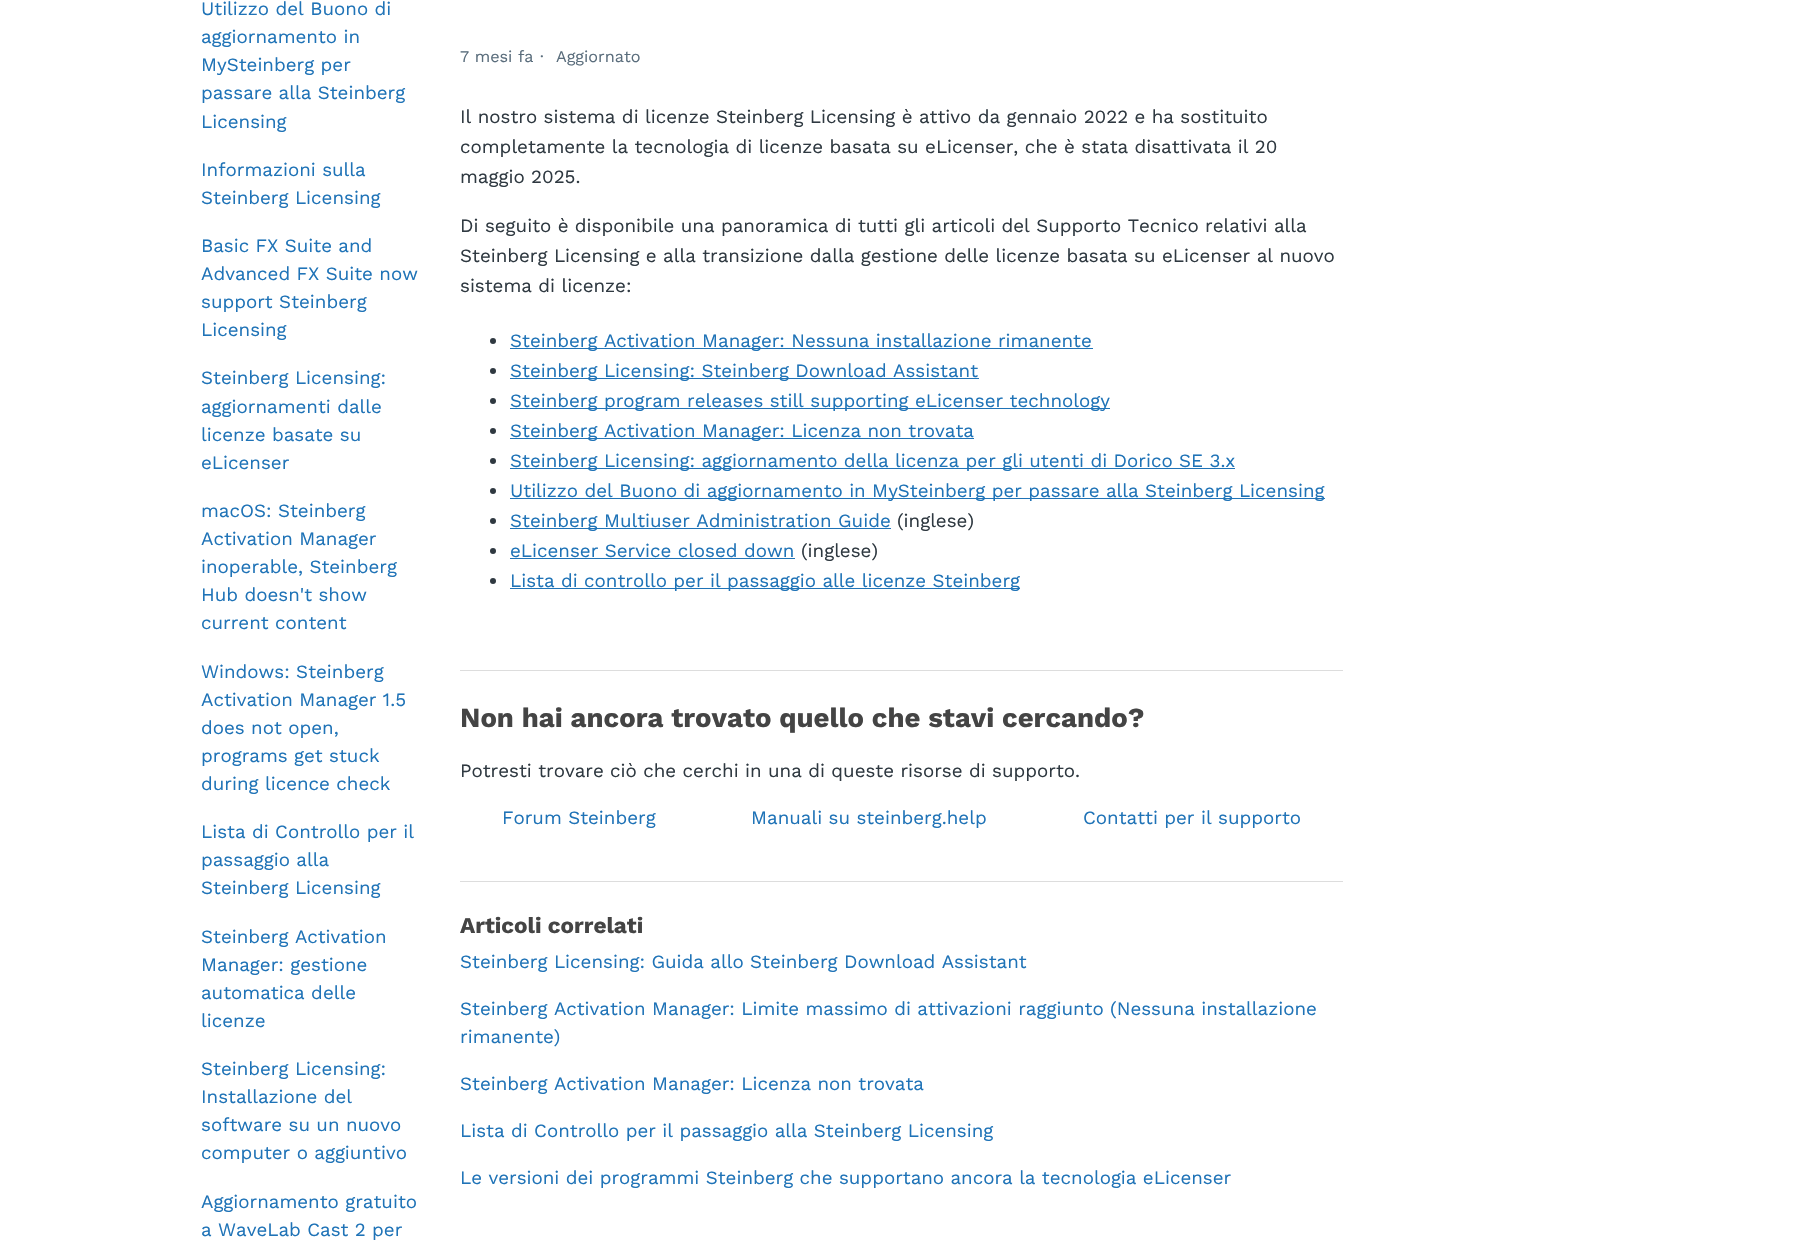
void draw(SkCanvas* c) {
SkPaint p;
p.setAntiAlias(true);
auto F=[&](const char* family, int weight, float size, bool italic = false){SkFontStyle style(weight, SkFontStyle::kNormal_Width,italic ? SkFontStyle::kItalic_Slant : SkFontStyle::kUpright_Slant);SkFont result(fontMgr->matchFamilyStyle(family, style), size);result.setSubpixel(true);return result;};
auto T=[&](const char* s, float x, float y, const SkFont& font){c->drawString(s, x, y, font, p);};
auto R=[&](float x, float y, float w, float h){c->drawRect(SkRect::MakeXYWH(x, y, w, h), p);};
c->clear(0xffffffff);
auto f1 = F("Work Sans",400,18.75);
p.setColor(0xff1f73b7);
T("Utilizzo del Buono di",201,15,f1);
T("aggiornamento in",201,43,f1);
T("MySteinberg per",201,71,f1);
T("passare alla Steinberg",201,99,f1);
T("Licensing",201,128,f1);
T("Informazioni sulla",201,176,f1);
T("Steinberg Licensing",201,204,f1);
T("Basic FX Suite and",201,252,f1);
T("Advanced FX Suite now",201,280,f1);
T("support Steinberg",201,308,f1);
T("Licensing",201,336,f1);
T("Steinberg Licensing:",201,384,f1);
T("aggiornamenti dalle",201,413,f1);
T("licenze basate su",201,441,f1);
T("eLicenser",201,469,f1);
T("macOS: Steinberg",201,517,f1);
T("Activation Manager",201,545,f1);
T("inoperable, Steinberg",201,573,f1);
T("Hub doesn't show",201,601,f1);
T("current content",201,629,f1);
T("Windows: Steinberg",201,678,f1);
T("Activation Manager 1.5",201,706,f1);
T("does not open,",201,734,f1);
T("programs get stuck",201,762,f1);
T("during licence check",201,790,f1);
T("Lista di Controllo per il",201,838,f1);
T("passaggio alla",201,866,f1);
T("Steinberg Licensing",201,894,f1);
T("Steinberg Activation",201,943,f1);
T("Manager: gestione",201,971,f1);
T("automatica delle",201,999,f1);
T("licenze",201,1027,f1);
T("Steinberg Licensing:",201,1075,f1);
T("Installazione del",201,1103,f1);
T("software su un nuovo",201,1131,f1);
T("computer o aggiuntivo",201,1159,f1);
T("Aggiornamento gratuito",201,1208,f1);
T("a WaveLab Cast 2 per",201,1236,f1);
auto f2 = F("Work Sans",400,16.25);
p.setColor(0xff5a6d7c);
T("7 mesi fa",460,62,f2);
T("·",540,62,f2);
T("Aggiornato",556,62,f2);
p.setColor(0xff2f3941);
T("Il nostro sistema di licenze Steinberg Licensing è attivo da gennaio 2022 e ha sostituito",460,123,f1);
T("completamente la tecnologia di licenze basata su eLicenser, che è stata disattivata il 20",460,153,f1);
T("maggio 2025.",460,183,f1);
T("Di seguito è disponibile una panoramica di tutti gli articoli del Supporto Tecnico relativi alla",460,232,f1);
T("Steinberg Licensing e alla transizione dalla gestione delle licenze basata su eLicenser al nuovo",460,262,f1);
T("sistema di licenze:",460,292,f1);
c->drawCircle(493,341,3,p);
p.setColor(0xff1f73b7);
R(510,348,583,1);
T("Steinberg Activation Manager: Nessuna installazione rimanente",510,347,f1);
p.setColor(0xff2f3941);
c->drawCircle(493,371,3,p);
p.setColor(0xff1f73b7);
R(510,378,469,1);
T("Steinberg Licensing: Steinberg Download Assistant",510,377,f1);
p.setColor(0xff2f3941);
c->drawCircle(493,401,3,p);
p.setColor(0xff1f73b7);
R(510,408,600,1);
T("Steinberg program releases still supporting eLicenser technology",510,407,f1);
p.setColor(0xff2f3941);
c->drawCircle(493,431,3,p);
p.setColor(0xff1f73b7);
R(510,438,464,1);
T("Steinberg Activation Manager: Licenza non trovata",510,437,f1);
p.setColor(0xff2f3941);
c->drawCircle(493,461,3,p);
p.setColor(0xff1f73b7);
R(510,468,725,1);
T("Steinberg Licensing: aggiornamento della licenza per gli utenti di Dorico SE 3.x",510,467,f1);
p.setColor(0xff2f3941);
c->drawCircle(493,491,3,p);
p.setColor(0xff1f73b7);
R(510,498,815,1);
T("Utilizzo del Buono di aggiornamento in MySteinberg per passare alla Steinberg Licensing",510,497,f1);
p.setColor(0xff2f3941);
c->drawCircle(493,521,3,p);
p.setColor(0xff1f73b7);
R(510,528,381,1);
T("Steinberg Multiuser Administration Guide",510,527,f1);
p.setColor(0xff2f3941);
T("(inglese)",897,527,f1);
c->drawCircle(493,551,3,p);
p.setColor(0xff1f73b7);
T("eLicenser Service closed down",510,557,f1);
R(510,558,285,1);
p.setColor(0xff2f3941);
T("(inglese)",801,557,f1);
c->drawCircle(493,581,3,p);
p.setColor(0xff1f73b7);
R(510,588,510,1);
T("Lista di controllo per il passaggio alle licenze Steinberg",510,587,f1);
p.setColor(0xffdddddd);
R(460,670,883,1);
auto f3 = F("Work Sans",700,27.5);
p.setColor(0xff444444);
T("Non hai ancora trovato quello che stavi cercando?",460,727,f3);
p.setColor(0xff2f3941);
T("Potresti trovare ciò che cerchi in una di queste risorse di supporto.",460,777,f1);
p.setColor(0xff1f73b7);
T("Forum Steinberg",502,824,f1);
T("Manuali su steinberg.help",751,824,f1);
T("Contatti per il supporto",1083,824,f1);
p.setColor(0xffdddddd);
R(460,881,883,1);
auto f4 = F("Work Sans",700,22.5);
p.setColor(0xff444444);
T("Articoli correlati",460,933,f4);
p.setColor(0xff1f73b7);
T("Steinberg Licensing: Guida allo Steinberg Download Assistant",460,968,f1);
T("Steinberg Activation Manager: Limite massimo di attivazioni raggiunto (Nessuna installazione",460,1015,f1);
T("rimanente)",460,1043,f1);
T("Steinberg Activation Manager: Licenza non trovata",460,1090,f1);
T("Lista di Controllo per il passaggio alla Steinberg Licensing",460,1137,f1);
T("Le versioni dei programmi Steinberg che supportano ancora la tecnologia eLicenser",460,1184,f1);
}
